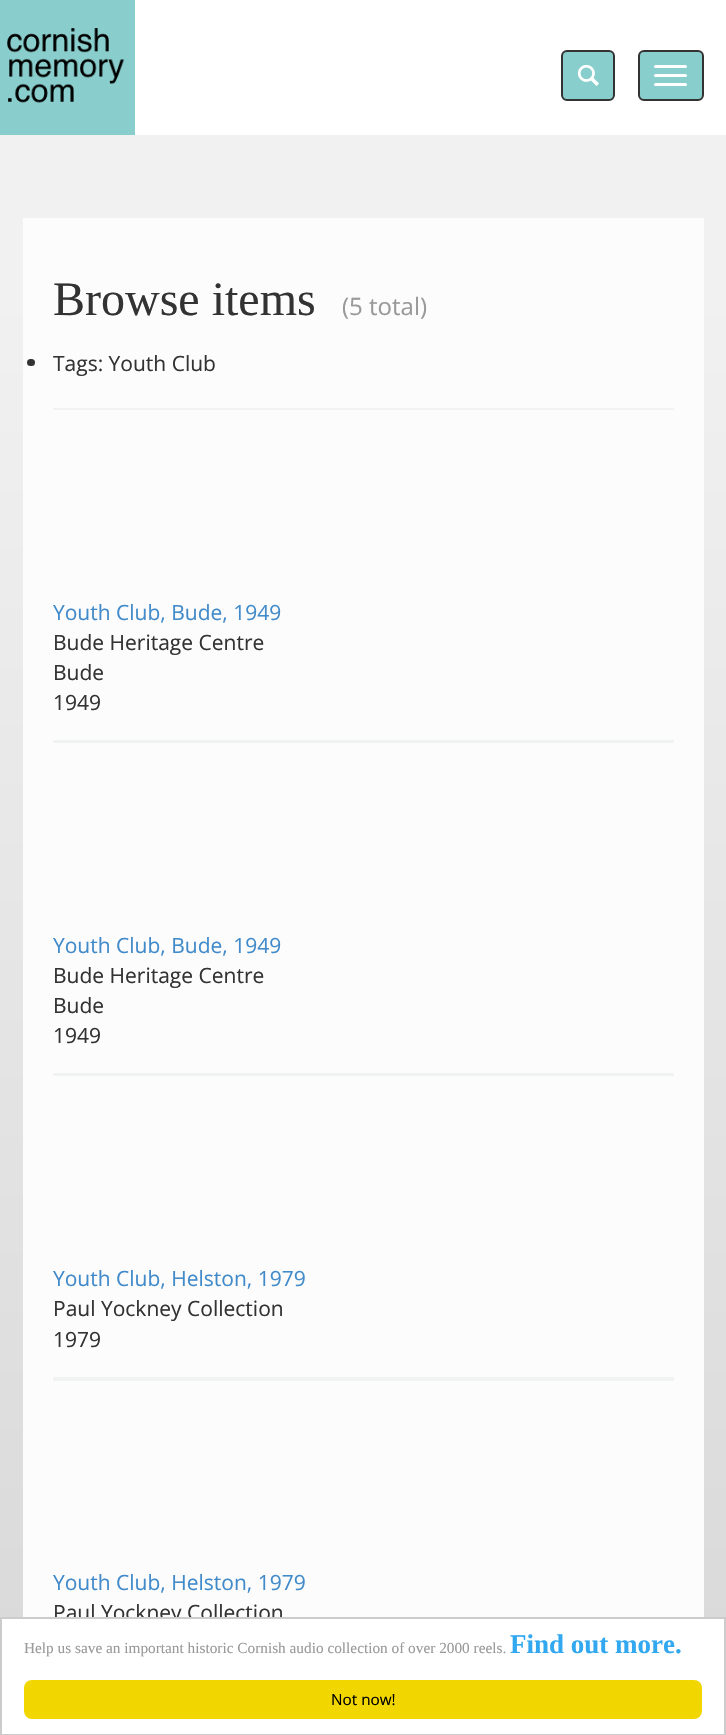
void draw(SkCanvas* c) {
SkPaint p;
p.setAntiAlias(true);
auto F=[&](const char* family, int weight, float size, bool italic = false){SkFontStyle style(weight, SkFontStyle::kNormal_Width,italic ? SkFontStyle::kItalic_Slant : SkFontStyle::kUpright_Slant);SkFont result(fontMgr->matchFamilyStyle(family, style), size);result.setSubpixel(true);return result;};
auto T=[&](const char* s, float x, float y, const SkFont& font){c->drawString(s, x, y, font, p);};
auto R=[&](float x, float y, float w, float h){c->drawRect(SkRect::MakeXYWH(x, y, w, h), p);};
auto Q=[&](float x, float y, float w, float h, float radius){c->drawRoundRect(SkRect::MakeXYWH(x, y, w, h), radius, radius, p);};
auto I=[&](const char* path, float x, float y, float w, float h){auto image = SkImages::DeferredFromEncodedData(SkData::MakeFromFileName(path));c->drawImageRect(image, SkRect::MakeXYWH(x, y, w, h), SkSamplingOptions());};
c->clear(0xffffffff);
I("1.png",0,0,135,135);
p.setColor(0xff88cecc);
c->drawRoundRect(SkRect::MakeXYWH(562,51,52,49),5,5,p);
p.setStroke(true);
p.setStrokeWidth(2);
p.setColor(0xff333333);
c->drawRoundRect(SkRect::MakeXYWH(562,51,52,49),5,5,p);
I("2.png",577,64,22,22);
p.setStroke(false);
p.setColor(0xff88cecc);
c->drawRoundRect(SkRect::MakeXYWH(639,51,64,49),5,5,p);
p.setStroke(true);
p.setColor(0xff333333);
c->drawRoundRect(SkRect::MakeXYWH(639,51,64,49),5,5,p);
p.setStroke(false);
p.setColor(0xffffffff);
Q(654,65,33,3,1.5);
Q(654,74,33,3,1.5);
Q(654,83,33,3,1.5);
p.setColor(0xfff1f1f1);
R(0,135,726,150);
{
const SkColor colors[] = {0xfff1f1f1,0xffcfcfcf};
const float stops[] = {0,1};
const SkPoint ends[] = {{363,285}, {363,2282}};
p.setShader(SkGradientShader::MakeLinear(ends, colors, stops, 2, SkTileMode::kClamp));
p.setAlpha(255);
}
R(0,285,726,1332);
p.setShader(nullptr);
p.setColor(0xfffcfcfc);
R(23,218,681,1399);
auto f1 = F("Liberation Serif",400,48);
p.setColor(0xff333333);
T("Browse items",53,315,f1);
auto f2 = F("Open Sans",400,24);
p.setColor(0xff999999);
T("(5 total)",342,315,f2);
p.setColor(0xff333333);
Q(27,359,8,7,3.5);
auto f3 = F("Open Sans",400,21);
T("Tags: Youth Club",53,371,f3);
p.setColor(0xfff1f2f2);
R(53,408,621,2);
R(53,740,621,3);
p.setColor(0xff428bca);
T("Youth Club, Bude, 1949",53,620,f3);
p.setColor(0xff333333);
T("Bude Heritage Centre",53,650,f3);
T("Bude",53,680,f3);
T("1949",53,710,f3);
p.setColor(0xfff1f2f2);
R(53,1073,621,3);
p.setColor(0xff428bca);
T("Youth Club, Bude, 1949",53,953,f3);
p.setColor(0xff333333);
T("Bude Heritage Centre",53,983,f3);
T("Bude",53,1013,f3);
T("1949",53,1043,f3);
p.setColor(0xfff1f2f2);
R(53,1377,621,4);
p.setColor(0xff428bca);
T("Youth Club, Helston, 1979",53,1286,f3);
p.setColor(0xff333333);
T("Paul Yockney Collection",53,1316,f3);
T("1979",53,1347,f3);
p.setColor(0xff428bca);
T("Youth Club, Helston, 1979",53,1590,f3);
p.setColor(0xff333333);
T("Paul Yockney Collection",53,1620,f3);
p.setColor(0xffffffff);
R(54,1619,228,7);
p.setStroke(true);
p.setColor(0xffcccccc);
c->drawRect(SkRect::MakeXYWH(1,1618,724,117),p);
auto f4 = F("Liberation Serif",400,15.3);
p.setStroke(false);
p.setColor(0xff999999);
T("Help us save an important historic Cornish audio collection of over 2000 reels.",24,1653,f4);
auto f5 = F("Liberation Serif",700,27);
p.setColor(0xff31a8f0);
T("Find out more.",510,1653,f5);
p.setColor(0xfff1d600);
Q(24,1680,678,39,8);
auto f6 = F("Open Sans",400,15.3);
p.setColor(0xff000000);
T("Not now!",331,1705,f6);
}
